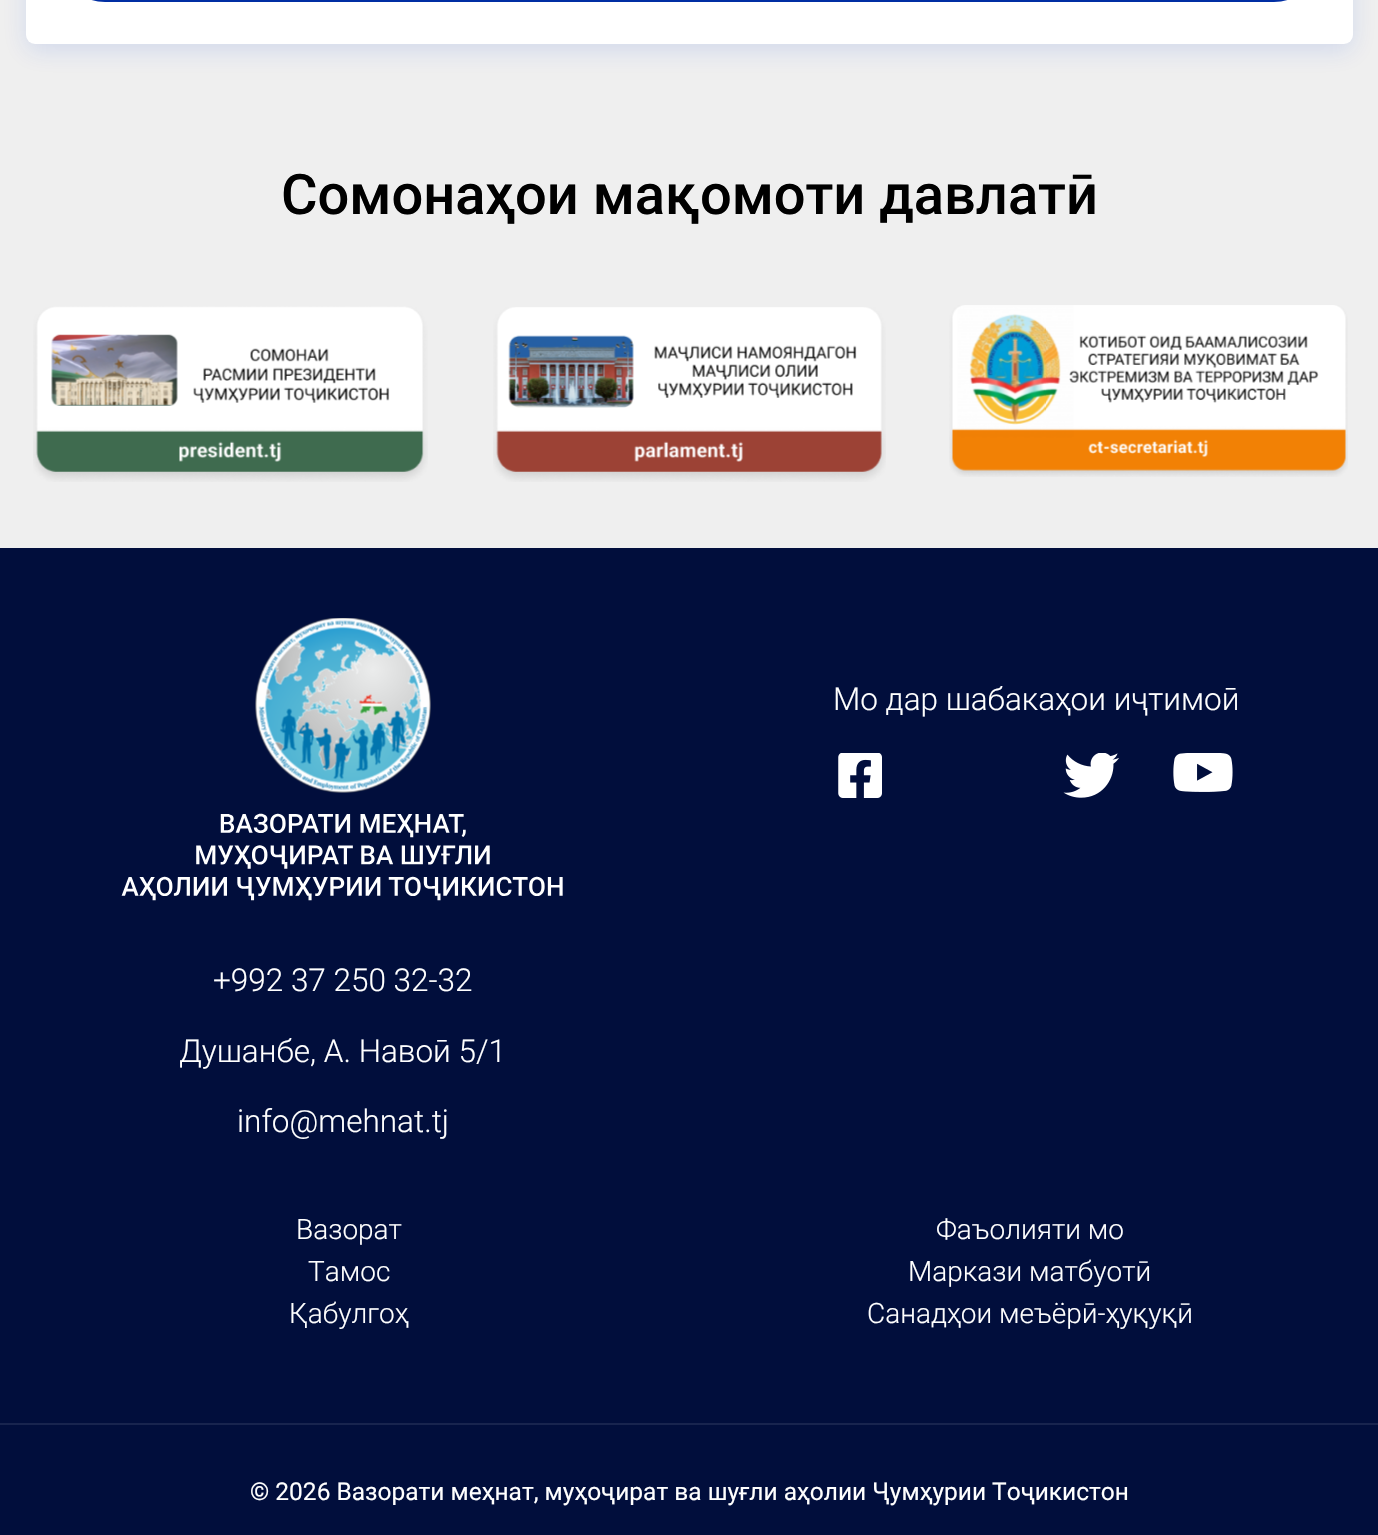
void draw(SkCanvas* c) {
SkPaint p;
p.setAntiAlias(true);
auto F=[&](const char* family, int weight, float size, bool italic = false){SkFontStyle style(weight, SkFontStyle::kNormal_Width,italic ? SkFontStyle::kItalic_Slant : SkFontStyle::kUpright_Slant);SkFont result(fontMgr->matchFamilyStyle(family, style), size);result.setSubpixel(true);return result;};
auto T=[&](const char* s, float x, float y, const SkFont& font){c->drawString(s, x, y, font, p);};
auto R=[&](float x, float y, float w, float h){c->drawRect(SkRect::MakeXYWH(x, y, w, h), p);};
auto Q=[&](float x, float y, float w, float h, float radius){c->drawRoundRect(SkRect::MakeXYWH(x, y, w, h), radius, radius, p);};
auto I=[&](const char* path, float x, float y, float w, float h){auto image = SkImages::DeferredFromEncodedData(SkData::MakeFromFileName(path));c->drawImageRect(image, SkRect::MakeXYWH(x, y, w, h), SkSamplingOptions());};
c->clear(0xffefefef);
p.setColor(0x211149d6);
p.setMaskFilter(SkMaskFilter::MakeBlur(kNormal_SkBlurStyle, 12));
c->drawRoundRect(SkRect::MakeXYWH(26,-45,1327,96),9,9,p);
p.setMaskFilter(nullptr);
p.setColor(0xffffffff);
Q(26,-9,1327,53,9);
p.setStroke(true);
p.setStrokeWidth(9);
p.setColor(0xff002ea3);
c->drawRoundRect(SkRect::MakeXYWH(65.5,-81.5,1248,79),72.5,72.5,p);
auto f1 = F("Roboto",500,56);
p.setStroke(false);
p.setColor(0xff000000);
T("Сомонаҳои мақомоти давлатӣ",281,214,f1);
I("1.png",33,306,395,176);
I("2.png",493,307,393,175);
I("3.png",949,305,399,172);
p.setColor(0xff010e3c);
R(0,548,1378,987);
I("4.png",121,618,442,283);
auto f2 = F("Roboto",300,31.5);
p.setColor(0xffffffff);
T("Мо дар шабакаҳои иҷтимоӣ",833,710,f2);
I("5.png",838,753,44,45);
I("6.png",1063,753,56,45);
I("7.png",1173,753,60,39);
T("+992 37 250 32-32",213,991,f2);
T("Душанбе, А. Навоӣ 5/1",179,1062,f2);
T("info@mehnat.tj",237,1132,f2);
auto f3 = F("Roboto",300,28);
T("Вазорат",296,1239,f3);
T("Фаъолияти мо",936,1239,f3);
T("Тамос",308,1281,f3);
T("Маркази матбуотӣ",908,1281,f3);
T("Қабулгоҳ",289,1323,f3);
T("Санадҳои меъёрӣ-ҳуқуқӣ",867,1323,f3);
p.setColor(0xff18244e);
R(0,1423,1378,2);
auto f4 = F("Roboto",400,24.5);
p.setColor(0xffffffff);
T("© 2026 Вазорати меҳнат, муҳоҷират ва шуғли аҳолии Ҷумҳурии Тоҷикистон",250,1500,f4);
}
